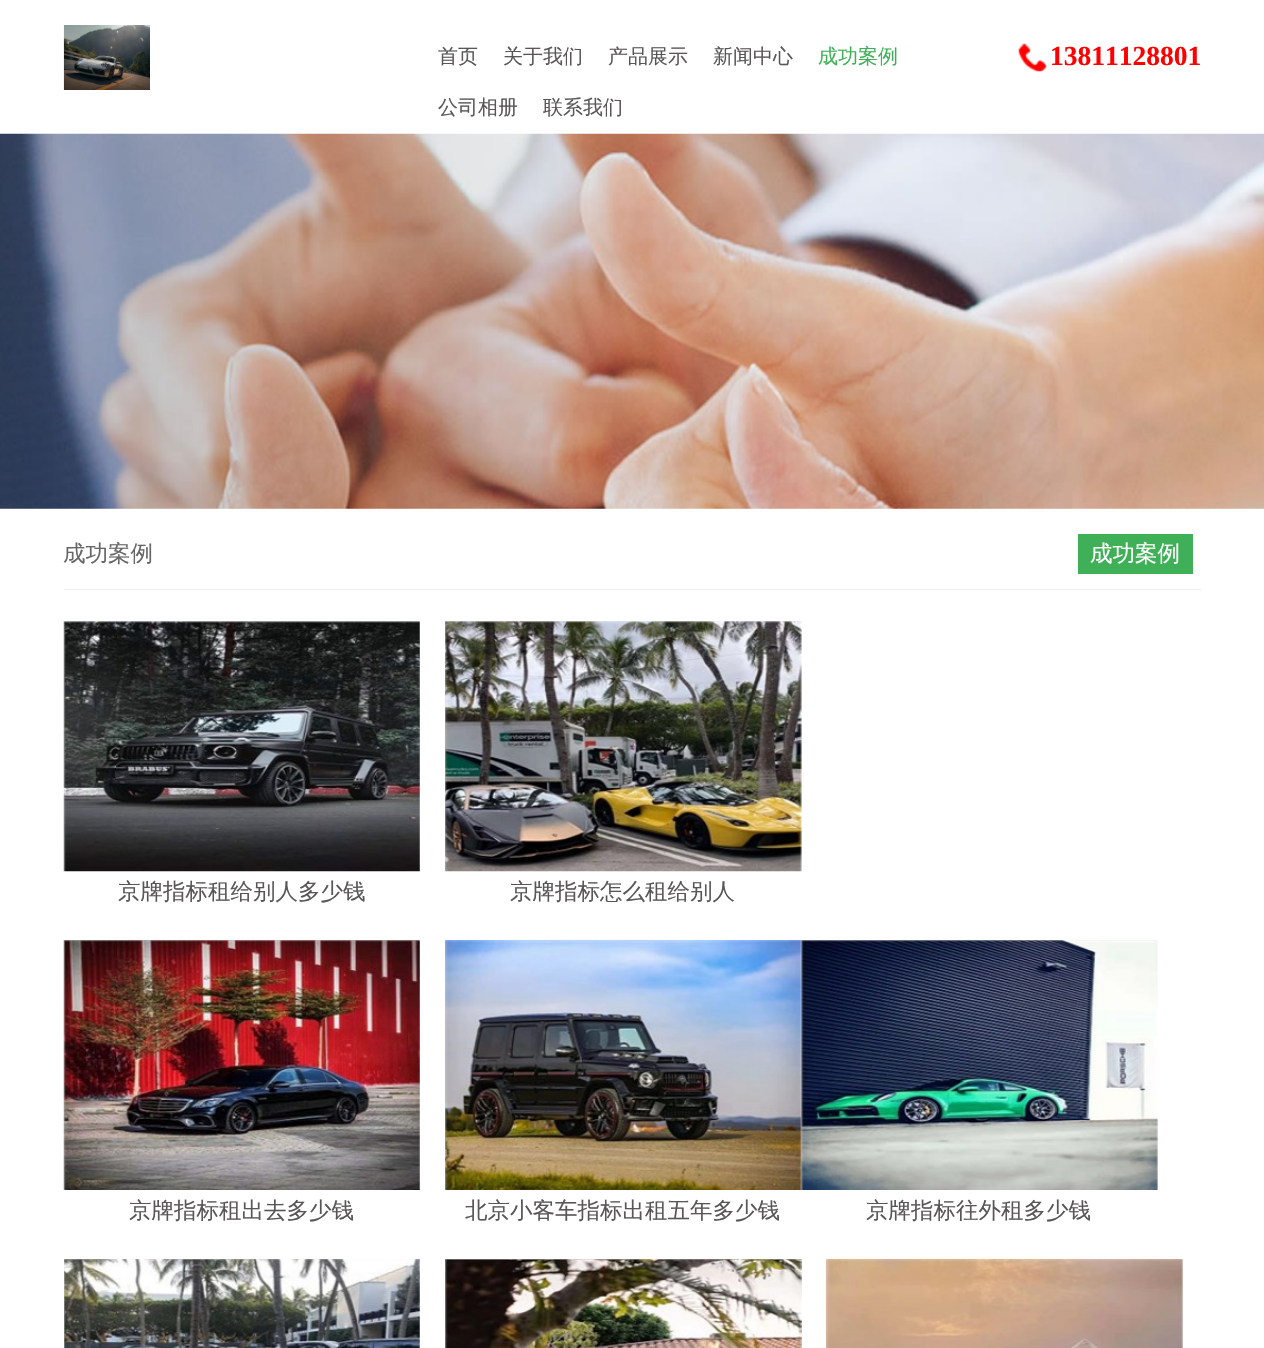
void draw(SkCanvas* c) {
SkPaint p;
p.setAntiAlias(true);
auto F=[&](const char* family, int weight, float size, bool italic = false){SkFontStyle style(weight, SkFontStyle::kNormal_Width,italic ? SkFontStyle::kItalic_Slant : SkFontStyle::kUpright_Slant);SkFont result(fontMgr->matchFamilyStyle(family, style), size);result.setSubpixel(true);return result;};
auto T=[&](const char* s, float x, float y, const SkFont& font){c->drawString(s, x, y, font, p);};
auto R=[&](float x, float y, float w, float h){c->drawRect(SkRect::MakeXYWH(x, y, w, h), p);};
auto I=[&](const char* path, float x, float y, float w, float h){auto image = SkImages::DeferredFromEncodedData(SkData::MakeFromFileName(path));c->drawImageRect(image, SkRect::MakeXYWH(x, y, w, h), SkSamplingOptions());};
c->clear(0xffffffff);
I("1.png",63,25,87,65);
auto f1 = F("WenQuanYi Zen Hei",500,20);
p.setColor(0xff585657);
T("首页",438,63,f1);
T("关于我们",503,63,f1);
T("产品展示",608,63,f1);
T("新闻中心",713,63,f1);
p.setColor(0xff3fb057);
T("成功案例",818,63,f1);
p.setColor(0xff585657);
T("公司相册",438,114,f1);
T("联系我们",543,114,f1);
I("2.png",1018,43,29,29);
auto f2 = F("Liberation Serif",700,27.5);
p.setColor(0xffff0000);
T("13811128801",1050,65,f2);
I("3.png",0,133,1264,376);
p.setColor(0xffefefef);
R(64,589,1137,1);
auto f3 = F("WenQuanYi Zen Hei",500,22.5);
p.setColor(0xff666666);
T("成功案例",63,561,f3);
p.setColor(0xff3fb057);
R(1078,534,115,40);
p.setColor(0xffffffff);
T("成功案例",1090,561,f3);
I("4.png",63,621,357,251);
p.setColor(0xff585657);
T("京牌指标租给别人多少钱",118,899,f3);
I("5.png",445,621,357,251);
T("京牌指标怎么租给别人",510,899,f3);
I("6.png",63,940,357,250);
T("京牌指标租出去多少钱",129,1218,f3);
I("7.png",445,940,357,250);
T("北京小客车指标出租五年多少钱",465,1218,f3);
I("8.png",801,940,357,250);
T("京牌指标往外租多少钱",866,1218,f3);
I("9.png",64,1259,356,89);
I("10.png",445,1259,357,89);
I("11.png",826,1259,357,89);
}
